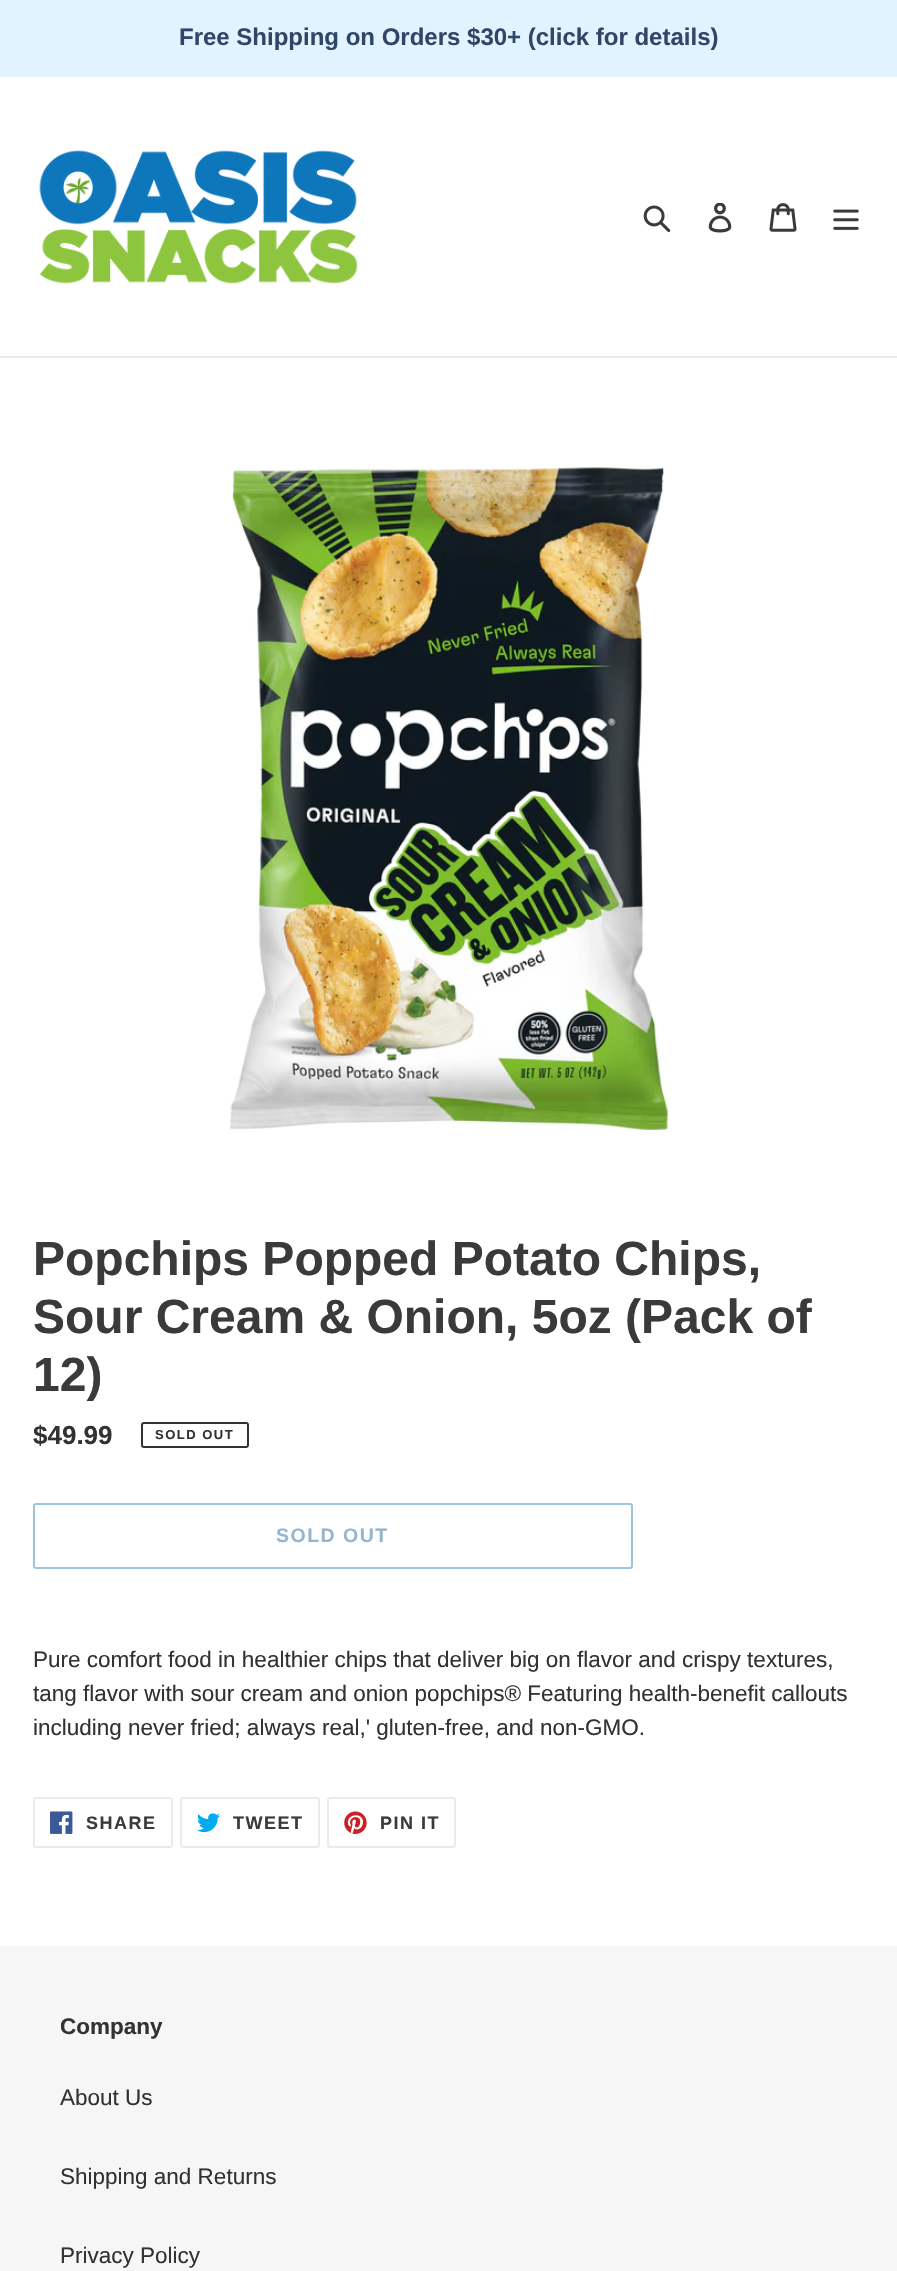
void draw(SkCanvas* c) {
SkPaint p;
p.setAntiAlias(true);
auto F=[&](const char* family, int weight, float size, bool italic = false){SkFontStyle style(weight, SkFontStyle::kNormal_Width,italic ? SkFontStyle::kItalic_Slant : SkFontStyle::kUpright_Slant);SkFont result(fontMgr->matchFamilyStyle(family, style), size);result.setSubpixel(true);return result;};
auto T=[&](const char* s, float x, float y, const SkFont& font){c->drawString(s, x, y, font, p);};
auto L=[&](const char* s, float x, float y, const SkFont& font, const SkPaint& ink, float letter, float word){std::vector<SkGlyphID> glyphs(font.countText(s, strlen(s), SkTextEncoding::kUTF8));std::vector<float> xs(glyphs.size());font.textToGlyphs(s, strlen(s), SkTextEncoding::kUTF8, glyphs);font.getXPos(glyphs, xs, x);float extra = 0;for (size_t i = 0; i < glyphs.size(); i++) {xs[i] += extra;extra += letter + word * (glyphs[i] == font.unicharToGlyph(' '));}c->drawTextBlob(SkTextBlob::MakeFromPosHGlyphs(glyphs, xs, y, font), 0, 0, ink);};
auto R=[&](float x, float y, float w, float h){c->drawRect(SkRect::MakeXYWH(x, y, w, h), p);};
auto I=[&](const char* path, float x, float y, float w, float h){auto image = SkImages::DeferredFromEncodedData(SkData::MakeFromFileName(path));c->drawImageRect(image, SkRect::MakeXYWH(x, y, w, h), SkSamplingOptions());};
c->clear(0xffffffff);
p.setColor(0xffe1f3ff);
R(0,0,897,77);
auto f1 = F("Liberation Sans",700,24);
p.setColor(0xff2f4668);
T("Free Shipping on Orders $30+ (click for details)",179,45,f1);
p.setColor(0xffebebeb);
R(0,356,897,2);
I("1.png",39,150,319,134);
I("2.png",643,205,28,28);
I("3.png",708,203,24,30);
I("4.png",769,203,28,29);
I("5.png",833,209,26,21);
I("6.png",229,467,440,663);
auto f2 = F("Liberation Sans",700,48);
p.setColor(0xff3a3a3a);
T("Popchips Popped Potato Chips,",33,1275,f2);
T("Sour Cream & Onion, 5oz (Pack of",33,1333,f2);
T("12)",33,1391,f2);
auto f3 = F("Liberation Sans",700,26);
p.setColor(0xff333232);
T("$49.99",33,1444,f3);
p.setStroke(true);
p.setStrokeWidth(2);
c->drawRoundRect(SkRect::MakeXYWH(142,1423,106,24),2,2,p);
auto f4 = F("Liberation Sans",700,13);
p.setStroke(false);
L("SOLD OUT",155,1439,f4,p,1.5,0);
p.setStroke(true);
p.setColor(0xff9cc3e0);
c->drawRoundRect(SkRect::MakeXYWH(34,1504,598,64),2,2,p);
auto f5 = F("Liberation Sans",700,19.5);
p.setStroke(false);
p.setColor(0xff96b5cc);
L("SOLD OUT",276,1542,f5,p,1.5,0);
auto f6 = F("Liberation Sans",400,22.5);
p.setColor(0xff333232);
T("Pure comfort food in healthier chips that deliver big on flavor and crispy textures,",33,1667,f6);
T("tang flavor with sour cream and onion popchips® Featuring health-benefit callouts",33,1701,f6);
T("including never fried; always real,' gluten-free, and non-GMO.",33,1735,f6);
p.setStroke(true);
p.setColor(0xffebebeb);
c->drawRoundRect(SkRect::MakeXYWH(34,1798,138,49),2,2,p);
I("7.png",50,1811,23,23);
auto f7 = F("Liberation Sans",700,18);
p.setStroke(false);
p.setColor(0xff3a3a3a);
L("SHARE",86,1829,f7,p,1.5,0);
p.setStroke(true);
p.setColor(0xffebebeb);
c->drawRoundRect(SkRect::MakeXYWH(181,1798,138,49),2,2,p);
I("8.png",197,1813,23,20);
p.setStroke(false);
p.setColor(0xff3a3a3a);
L("TWEET",233,1829,f7,p,1.5,0);
p.setStroke(true);
p.setColor(0xffebebeb);
c->drawRoundRect(SkRect::MakeXYWH(328,1798,127,49),2,2,p);
I("9.png",344,1811,23,23);
p.setStroke(false);
p.setColor(0xff3a3a3a);
L("PIN IT",380,1829,f7,p,1.5,0);
p.setColor(0xfff6f6f6);
R(0,1946,897,325);
auto f8 = F("Liberation Sans",700,22.5);
p.setColor(0xff333232);
T("Company",60,2034,f8);
T("About Us",60,2105,f6);
T("Shipping and Returns",60,2184,f6);
T("Privacy Policy",60,2263,f6);
}
